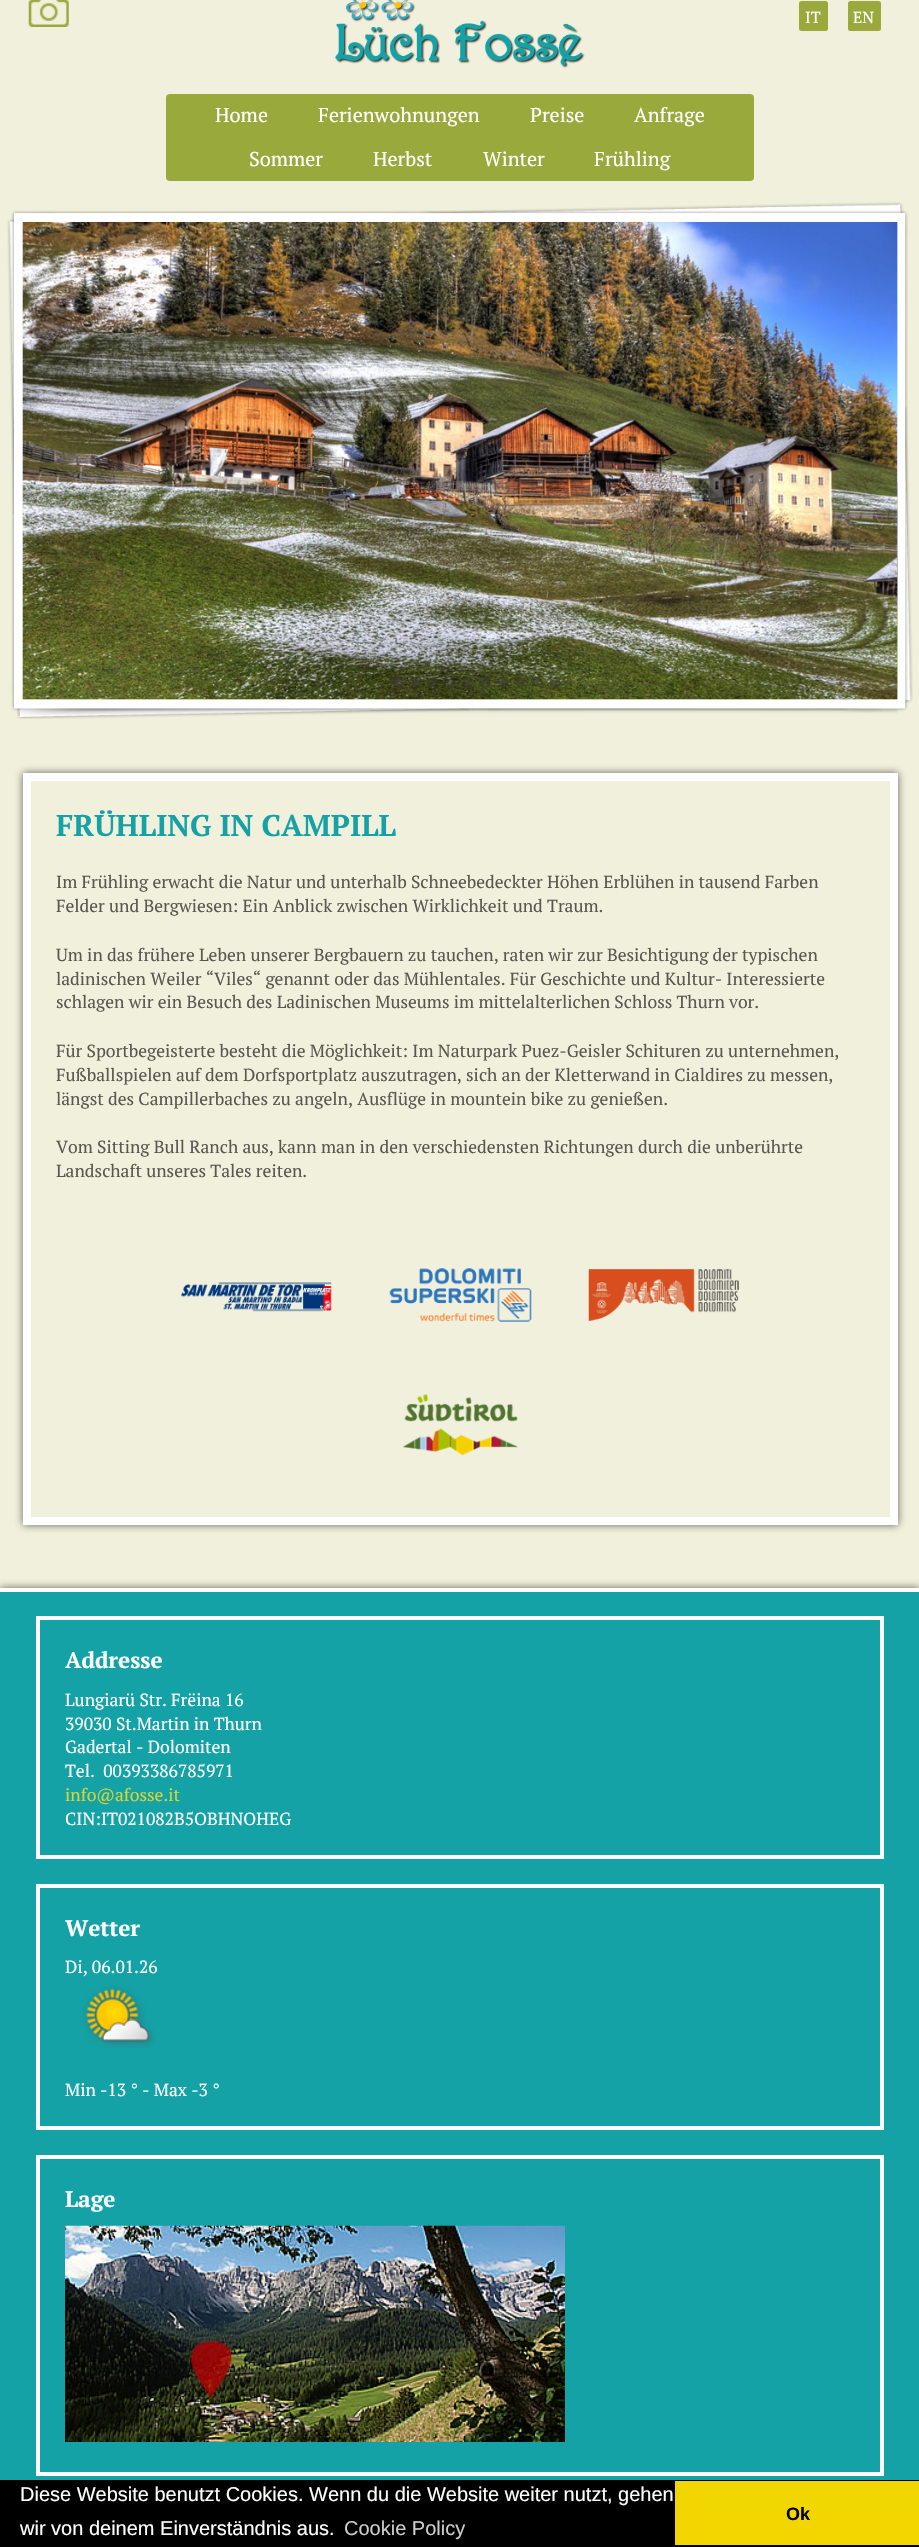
void draw(SkCanvas* c) {
SkPaint p;
p.setAntiAlias(true);
auto F=[&](const char* family, int weight, float size, bool italic = false){SkFontStyle style(weight, SkFontStyle::kNormal_Width,italic ? SkFontStyle::kItalic_Slant : SkFontStyle::kUpright_Slant);SkFont result(fontMgr->matchFamilyStyle(family, style), size);result.setSubpixel(true);return result;};
auto T=[&](const char* s, float x, float y, const SkFont& font){c->drawString(s, x, y, font, p);};
auto R=[&](float x, float y, float w, float h){c->drawRect(SkRect::MakeXYWH(x, y, w, h), p);};
auto Q=[&](float x, float y, float w, float h, float radius){c->drawRoundRect(SkRect::MakeXYWH(x, y, w, h), radius, radius, p);};
auto I=[&](const char* path, float x, float y, float w, float h){auto image = SkImages::DeferredFromEncodedData(SkData::MakeFromFileName(path));c->drawImageRect(image, SkRect::MakeXYWH(x, y, w, h), SkSamplingOptions());};
auto P=[&](const char* data, bool evenOdd = false){SkPath result = *SkParsePath::FromSVGString(data);if (evenOdd) result.setFillType(SkPathFillType::kEvenOdd);return result;};
c->clear(0xfff1f0dc);
I("1.png",28,0,41,27);
I("2.png",335,0,250,68);
p.setColor(0xff99a93c);
Q(799,1,29,30,2.5);
auto f1 = F("PT Serif",400,16);
p.setColor(0xffffffff);
T("IT",805,23,f1);
p.setColor(0xff99a93c);
Q(848,1,33,30,2.5);
p.setColor(0xffffffff);
T("EN",853,23,f1);
p.setColor(0xff99a93c);
Q(166,94,588,87,4);
auto f2 = F("PT Serif",400,20);
p.setColor(0xffffffff);
T("Home",215,122,f2);
T("Ferienwohnungen",318,122,f2);
T("Preise",530,122,f2);
T("Anfrage",634,122,f2);
T("Sommer",249,166,f2);
T("Herbst",373,166,f2);
T("Winter",483,166,f2);
T("Frühling",594,166,f2);
I("3.png",7,202,906,517);
I("4.png",22,222,876,478);
I("5.png",897,222,1,478);
I("6.png",392,677,11,10);
I("7.png",410,677,10,10);
I("8.png",427,677,11,10);
I("9.png",445,677,10,10);
I("10.png",462,677,11,10);
I("11.png",480,677,10,10);
I("12.png",497,677,11,10);
I("13.png",515,677,10,10);
I("14.png",532,677,11,10);
I("15.png",550,677,10,10);
c->save();
c->clipPath(P("M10 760h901v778h-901zm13 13h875v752h-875z",true),true);
p.setColor(0xbf323232);
p.setMaskFilter(SkMaskFilter::MakeBlur(kNormal_SkBlurStyle, 4));
c->drawRect(SkRect::MakeXYWH(23,773,875,752),p);
p.setMaskFilter(nullptr);
c->restore();
p.setStroke(true);
p.setStrokeWidth(8);
p.setColor(0xffffffff);
c->drawRect(SkRect::MakeXYWH(27,777,867,744),p);
auto f3 = F("PT Serif",700,30);
p.setStroke(false);
p.setColor(0xff14a2a6);
T("FRÜHLING IN CAMPILL",56,836,f3);
auto f4 = F("PT Serif",400,17.5);
p.setColor(0xff585850);
T("Im Frühling erwacht die Natur und unterhalb Schneebedeckter Höhen Erblühen in tausend Farben",56,888,f4);
T("Felder und Bergwiesen: Ein Anblick zwischen Wirklichkeit und Traum.",56,912,f4);
T("Um in das frühere Leben unserer Bergbauern zu tauchen, raten wir zur Besichtigung der typischen",56,961,f4);
T("ladinischen Weiler “Viles“ genannt oder das Mühlentales. Für Geschichte und Kultur- Interessierte",56,985,f4);
T("schlagen wir ein Besuch des Ladinischen Museums im mittelalterlichen Schloss Thurn vor.",56,1008,f4);
T("Für Sportbegeisterte besteht die Möglichkeit: Im Naturpark Puez-Geisler Schituren zu unternehmen,",56,1057,f4);
T("Fußballspielen auf dem Dorfsportplatz auszutragen, sich an der Kletterwand in Cialdires zu messen,",56,1081,f4);
T("längst des Campillerbaches zu angeln, Ausflüge in mountein bike zu genießen.",56,1105,f4);
T("Vom Sitting Bull Ranch aus, kann man in den verschiedensten Richtungen durch die unberührte",56,1153,f4);
T("Landschaft unseres Tales reiten.",56,1177,f4);
I("16.png",181,1282,151,30);
I("17.png",389,1268,143,54);
I("18.png",588,1269,151,52);
I("19.png",403,1394,115,62);
p.setColor(0xbf323232);
p.setMaskFilter(SkMaskFilter::MakeBlur(kNormal_SkBlurStyle, 4));
c->drawRect(SkRect::MakeXYWH(0,1588,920,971),p);
p.setMaskFilter(nullptr);
p.setColor(0xff14a2a6);
R(0,1592,919,888);
p.setColor(0xffffffff);
R(0,1588,919,4);
p.setStroke(true);
p.setStrokeWidth(4);
c->drawRect(SkRect::MakeXYWH(38,1618,844,239),p);
auto f5 = F("PT Serif",700,22.5);
p.setStroke(false);
T("Addresse",65,1668,f5);
T("Lungiarü Str. Frëina 16",65,1706,f4);
T("39030 St.Martin in Thurn",65,1730,f4);
T("Gadertal - Dolomiten",65,1753,f4);
T("Tel.  00393386785971",65,1777,f4);
p.setColor(0xffd6d534);
T("info@afosse.it",65,1801,f4);
p.setColor(0xffffffff);
T("CIN:IT021082B5OBHNOHEG",65,1825,f4);
p.setStroke(true);
c->drawRect(SkRect::MakeXYWH(38,1886,844,242),p);
p.setStroke(false);
T("Wetter",65,1936,f5);
T("Di, 06.01.26",65,1973,f4);
I("20.png",83,1986,72,62);
T("Min -13 ° - Max -3 °",65,2096,f4);
p.setStroke(true);
c->drawRect(SkRect::MakeXYWH(38,2157,844,317),p);
p.setStroke(false);
T("Lage",65,2207,f5);
I("21.png",65,2225,500,217);
p.setColor(0xff000000);
R(0,2480,919,67);
auto f6 = F("Liberation Sans",400,20);
p.setColor(0xffffffff);
T("Diese Website benutzt Cookies. Wenn du die Website weiter nutzt, gehen",20,2501,f6);
T("wir von deinem Einverständnis aus.",20,2535,f6);
p.setColor(0xffcccccc);
T("Cookie Policy",344,2535,f6);
p.setColor(0xfff1d600);
R(675,2481,244,64);
auto f7 = F("Liberation Sans",700,18);
p.setColor(0xff000000);
T("Ok",786,2520,f7);
}
